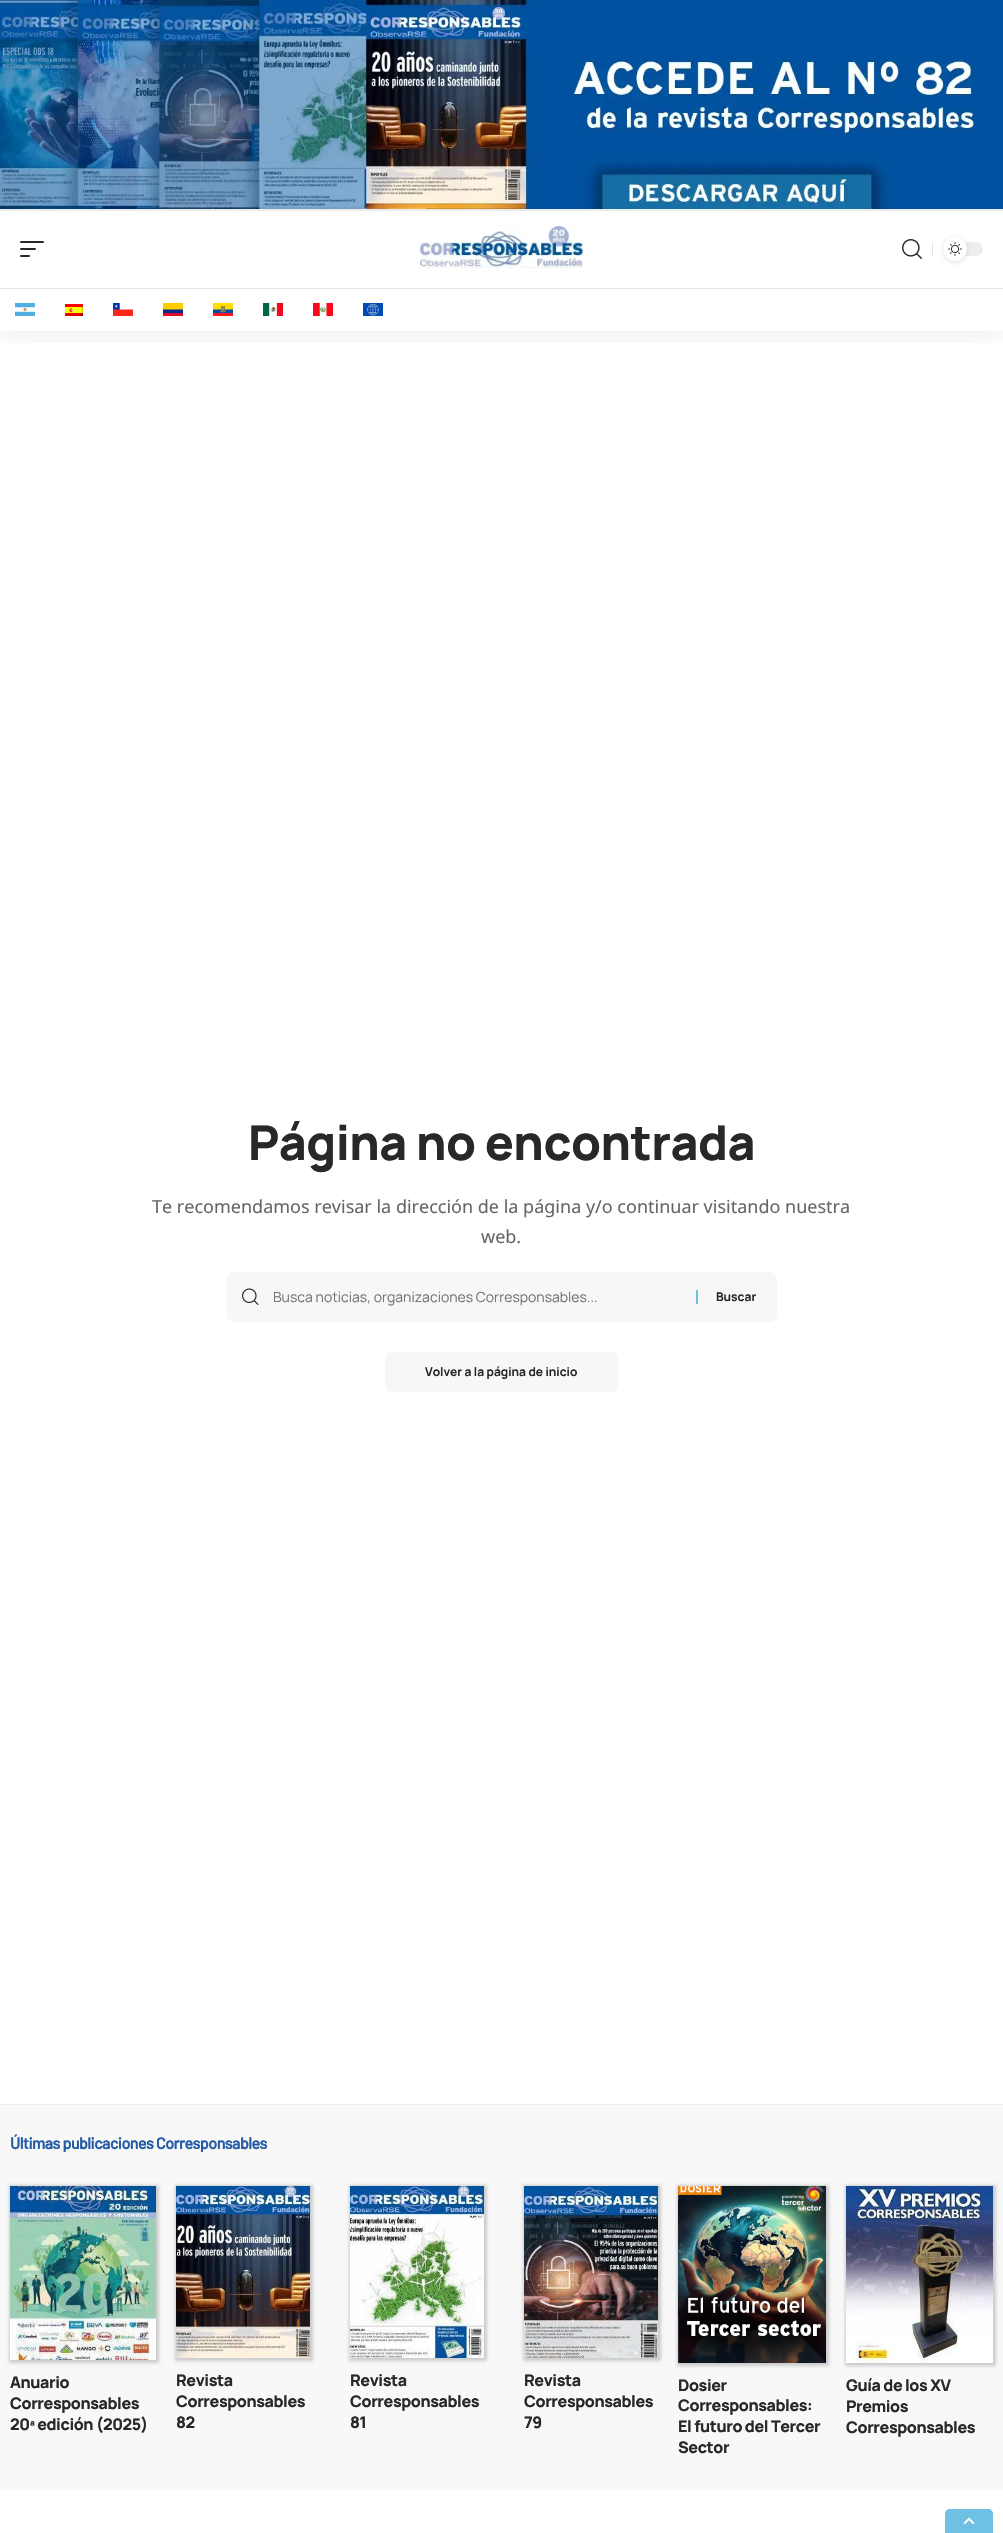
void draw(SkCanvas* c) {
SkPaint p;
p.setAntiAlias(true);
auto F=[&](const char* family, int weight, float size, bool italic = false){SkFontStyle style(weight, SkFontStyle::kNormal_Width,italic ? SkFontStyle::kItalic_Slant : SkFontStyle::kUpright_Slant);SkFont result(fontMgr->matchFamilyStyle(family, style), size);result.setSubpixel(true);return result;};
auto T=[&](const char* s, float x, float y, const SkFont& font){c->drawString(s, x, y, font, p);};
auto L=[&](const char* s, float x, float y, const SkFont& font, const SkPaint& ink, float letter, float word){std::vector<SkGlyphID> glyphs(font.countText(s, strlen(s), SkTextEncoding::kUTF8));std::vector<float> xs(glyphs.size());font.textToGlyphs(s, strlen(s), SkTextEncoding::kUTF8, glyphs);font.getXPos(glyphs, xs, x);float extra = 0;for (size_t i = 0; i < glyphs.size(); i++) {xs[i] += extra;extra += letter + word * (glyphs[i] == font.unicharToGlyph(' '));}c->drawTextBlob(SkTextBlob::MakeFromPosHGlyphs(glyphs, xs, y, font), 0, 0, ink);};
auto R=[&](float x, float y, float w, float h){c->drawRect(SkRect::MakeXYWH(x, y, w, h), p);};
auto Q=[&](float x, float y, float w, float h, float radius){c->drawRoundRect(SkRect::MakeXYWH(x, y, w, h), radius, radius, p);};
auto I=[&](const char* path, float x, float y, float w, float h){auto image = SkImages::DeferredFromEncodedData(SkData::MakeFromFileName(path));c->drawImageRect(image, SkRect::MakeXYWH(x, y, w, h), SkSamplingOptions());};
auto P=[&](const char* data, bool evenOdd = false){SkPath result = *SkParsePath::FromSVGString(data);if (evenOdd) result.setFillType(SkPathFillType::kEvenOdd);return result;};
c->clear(0xffffffff);
p.setColor(0xffececec);
R(0,209,1003,2);
I("1.png",0,0,1003,209);
c->save();
c->clipRect(SkRect::MakeXYWH(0,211,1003,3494));
c->clipRect(SkRect::MakeXYWH(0,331,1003,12));
p.setColor(0x12000000);
p.setMaskFilter(SkMaskFilter::MakeBlur(kNormal_SkBlurStyle, 15));
c->drawRect(SkRect::MakeXYWH(0,215,1003,120),p);
p.setMaskFilter(nullptr);
c->restore();
p.setColor(0xff282828);
Q(20,241,24,2,1);
Q(20,248,16,2,1);
Q(20,255,10,2,1);
I("2.png",420,226,163,42);
I("3.png",902,239,20,20);
p.setColor(0xffe4e4e4);
R(932,242,1,14);
p.setColor(0xffededed);
Q(943,242,40,14,7);
p.setColor(0x1f000000);
p.setMaskFilter(SkMaskFilter::MakeBlur(kNormal_SkBlurStyle, 2));
c->drawRoundRect(SkRect::MakeXYWH(943,238,24,24),12,12,p);
p.setMaskFilter(nullptr);
p.setColor(0xffffffff);
c->drawCircle(955,249,12,p);
I("4.png",948,242,14,14);
p.setColor(0xffe4e4e4);
R(0,288,1003,1);
I("5.png",15,303,20,13);
I("6.png",65,304,18,12);
I("7.png",113,303,20,13);
I("8.png",163,303,20,13);
I("9.png",213,303,20,13);
I("10.png",263,303,20,13);
I("11.png",313,303,20,13);
I("12.png",363,303,20,13);
auto f1 = F("Manrope",800,48);
p.setColor(0xff282828);
L("Página no encontrada",248,1160,f1,p,-.5,0);
auto f2 = F("Noto Sans",400,18);
p.setColor(0xff666666);
T("Te recomendamos revisar la dirección de la página y/o continuar visitando nuestra",152,1213,f2);
T("web.",481,1243,f2);
p.setColor(0xfff7f7f7);
Q(227,1272,550,50,7);
I("13.png",242,1288,17,17);
auto f3 = F("Manrope",400,14);
p.setColor(0xff757575);
T("Busca noticias, organizaciones Corresponsables...",273,1302,f3);
p.setColor(0xff6ec1e4);
R(696,1290,2,14);
auto f4 = F("Manrope",700,12);
p.setColor(0xff282828);
T("Buscar",716,1301,f4);
p.setColor(0xfff7f7f7);
Q(385,1352,233,40,7);
p.setColor(0xff282828);
T("Volver a la página de inicio",425,1376,f4);
p.setColor(0xffededed);
R(0,2104,1003,1);
p.setColor(0xfff8f8f8);
R(0,2105,1003,385);
auto f5 = F("Barlow",700,16);
p.setColor(0xff265da6);
L("Últimas publicaciones Corresponsables",10,2149,f5,p,-.5,0);
p.setColor(0xffcccccc);
p.setMaskFilter(SkMaskFilter::MakeBlur(kNormal_SkBlurStyle, 1.5));
c->drawRect(SkRect::MakeXYWH(9,2185,150,178),p);
p.setMaskFilter(nullptr);
I("14.png",10,2186,146,174);
auto f6 = F("Manrope",800,16);
p.setColor(0xff282828);
L("Anuario",10,2388,f6,p,-.4,0);
L("Corresponsables",10,2409,f6,p,-.4,0);
L("20ª edición (2025)",10,2430,f6,p,-.4,0);
p.setColor(0xffcccccc);
p.setMaskFilter(SkMaskFilter::MakeBlur(kNormal_SkBlurStyle, 1.5));
c->drawRect(SkRect::MakeXYWH(175,2185,138,176),p);
p.setMaskFilter(nullptr);
I("15.png",176,2186,134,172);
p.setColor(0xff282828);
L("Revista",176,2386,f6,p,-.4,0);
L("Corresponsables",176,2407,f6,p,-.4,0);
L("82",176,2428,f6,p,-.4,0);
p.setColor(0xffcccccc);
p.setMaskFilter(SkMaskFilter::MakeBlur(kNormal_SkBlurStyle, 1.5));
c->drawRect(SkRect::MakeXYWH(349,2185,138,176),p);
p.setMaskFilter(nullptr);
I("16.png",350,2186,134,172);
p.setColor(0xff282828);
L("Revista",350,2386,f6,p,-.4,0);
L("Corresponsables",350,2407,f6,p,-.4,0);
L("81",350,2428,f6,p,-.4,0);
p.setColor(0xffcccccc);
p.setMaskFilter(SkMaskFilter::MakeBlur(kNormal_SkBlurStyle, 1.5));
c->drawRect(SkRect::MakeXYWH(523,2185,138,176),p);
p.setMaskFilter(nullptr);
I("17.png",524,2186,134,172);
p.setColor(0xff282828);
L("Revista",524,2386,f6,p,-.4,0);
L("Corresponsables",524,2407,f6,p,-.4,0);
L("79",524,2428,f6,p,-.4,0);
p.setColor(0xffcccccc);
p.setMaskFilter(SkMaskFilter::MakeBlur(kNormal_SkBlurStyle, 1.5));
c->drawRect(SkRect::MakeXYWH(677,2185,152,181),p);
p.setMaskFilter(nullptr);
I("18.png",678,2186,148,177);
p.setColor(0xff282828);
L("Dosier",678,2391,f6,p,-.4,0);
L("Corresponsables:",678,2411,f6,p,-.4,0);
L("El futuro del Tercer",678,2432,f6,p,-.4,0);
L("Sector",678,2453,f6,p,-.4,0);
p.setColor(0xffcccccc);
p.setMaskFilter(SkMaskFilter::MakeBlur(kNormal_SkBlurStyle, 1.5));
c->drawRect(SkRect::MakeXYWH(845,2185,151,181),p);
p.setMaskFilter(nullptr);
I("19.png",846,2186,147,177);
p.setColor(0xff282828);
L("Guía de los XV",846,2391,f6,p,-.4,0);
L("Premios",846,2412,f6,p,-.4,0);
L("Corresponsables",846,2433,f6,p,-.4,0);
p.setColor(0xff6ec1e4);
c->drawPath(P("M950 2509h38c3 0 5 2 5 5v19h-48v-19c0-3 2-5 5-5z"),p);
I("20.png",963,2517,12,8);
}
